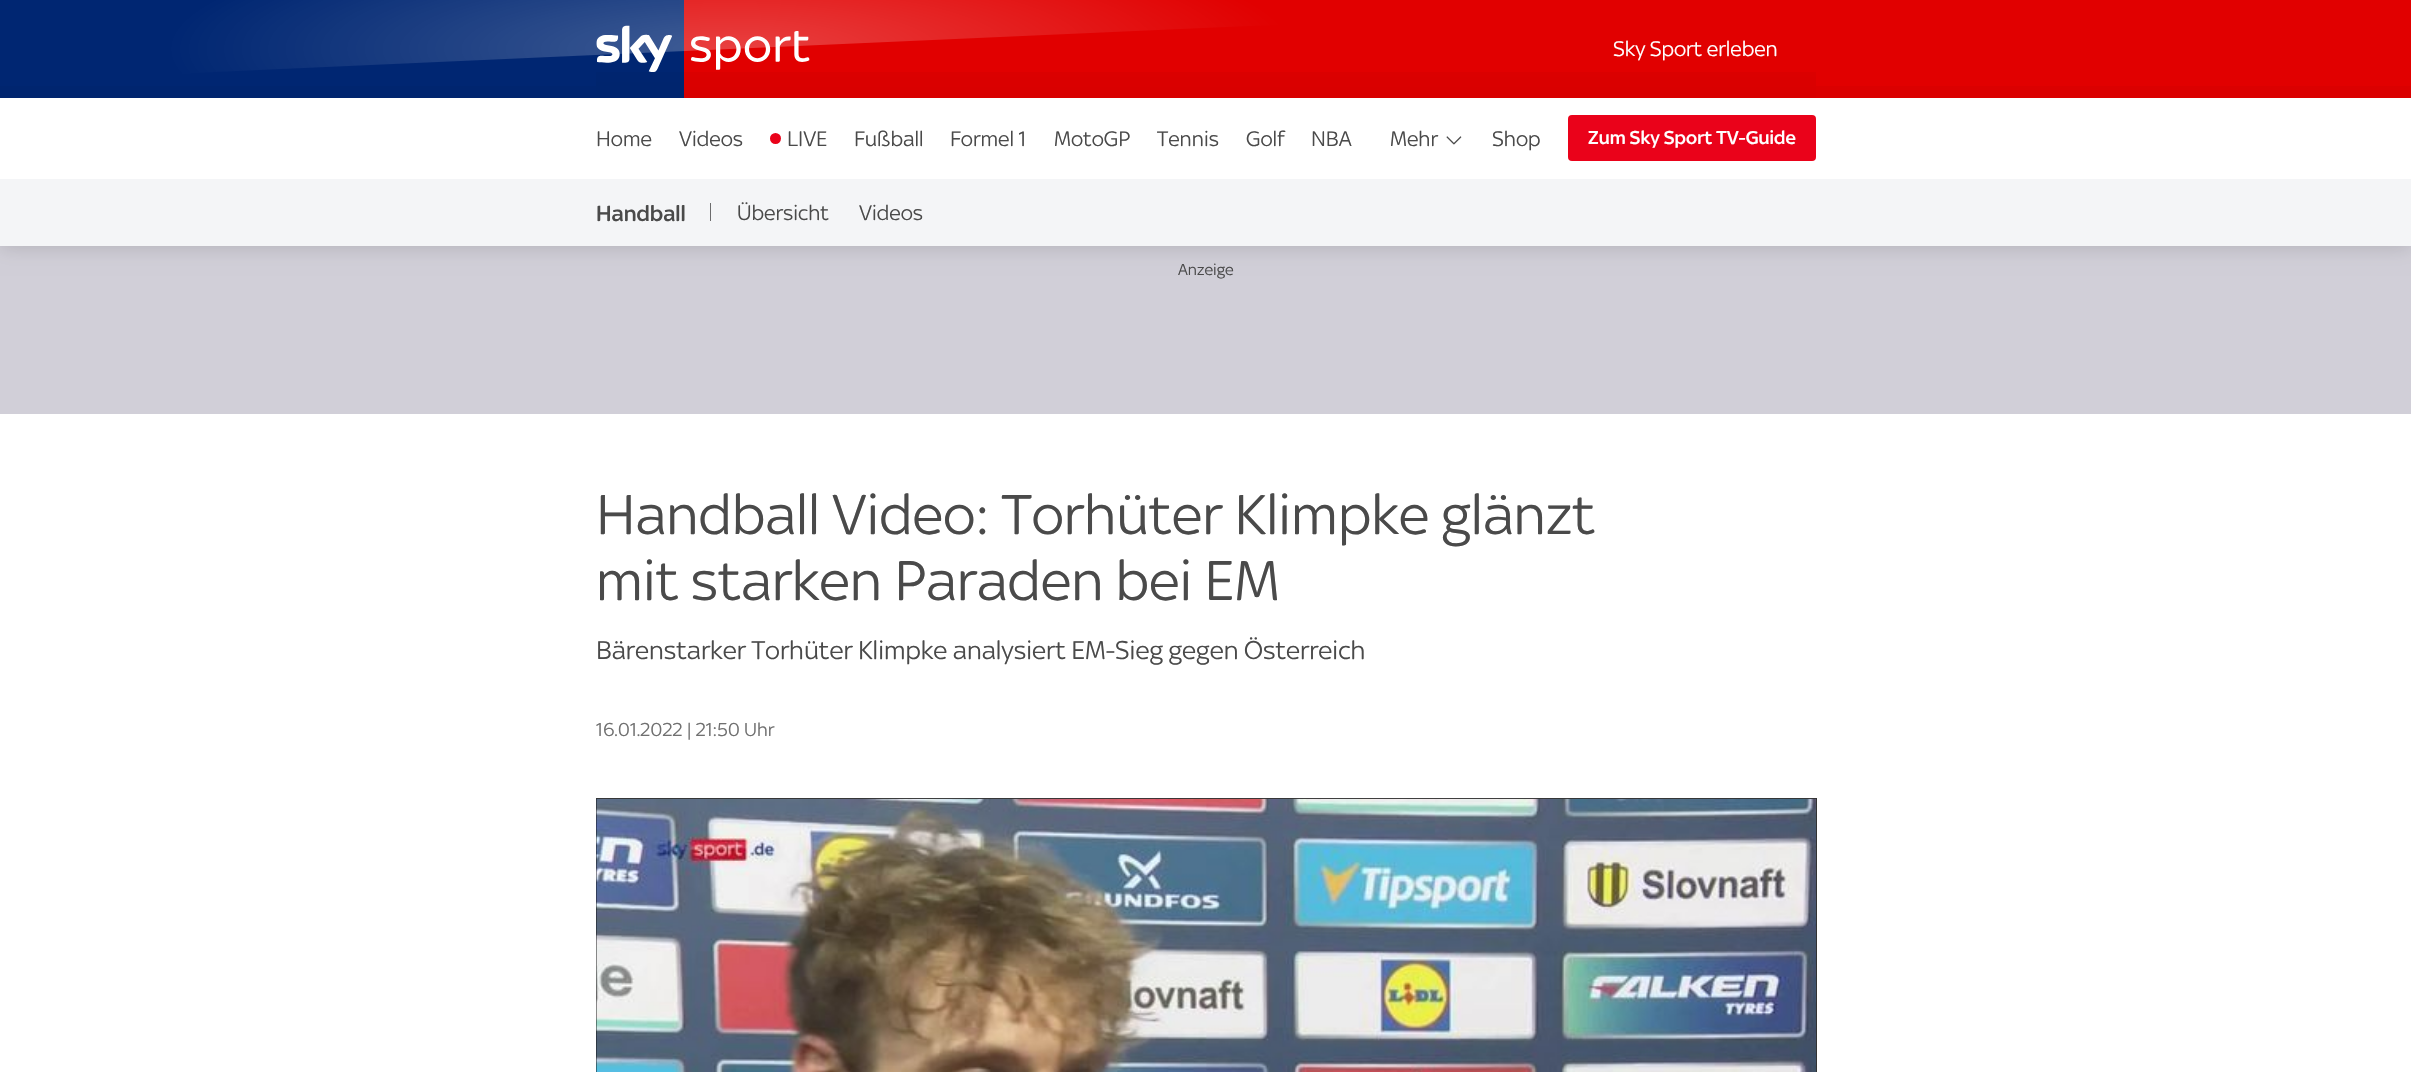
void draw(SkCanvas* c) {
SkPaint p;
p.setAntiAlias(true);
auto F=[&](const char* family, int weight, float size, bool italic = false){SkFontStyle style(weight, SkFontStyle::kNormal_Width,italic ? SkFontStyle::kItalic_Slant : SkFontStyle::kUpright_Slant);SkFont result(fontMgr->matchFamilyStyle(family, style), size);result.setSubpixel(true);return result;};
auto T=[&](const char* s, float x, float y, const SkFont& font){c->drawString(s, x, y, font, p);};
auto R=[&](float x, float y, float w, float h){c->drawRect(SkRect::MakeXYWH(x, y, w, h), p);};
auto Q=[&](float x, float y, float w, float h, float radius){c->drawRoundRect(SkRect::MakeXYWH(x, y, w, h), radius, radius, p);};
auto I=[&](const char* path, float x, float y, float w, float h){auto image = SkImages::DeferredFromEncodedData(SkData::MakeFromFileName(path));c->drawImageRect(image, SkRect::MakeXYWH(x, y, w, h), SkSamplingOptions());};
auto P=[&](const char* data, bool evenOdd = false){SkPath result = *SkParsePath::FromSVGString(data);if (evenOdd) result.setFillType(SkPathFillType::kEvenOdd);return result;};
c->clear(0xffffffff);
p.setColor(0xffd1cfd8);
R(0,246,2411,168);
p.setColor(0x24000000);
p.setMaskFilter(SkMaskFilter::MakeBlur(kNormal_SkBlurStyle, 9.5));
c->drawRect(SkRect::MakeXYWH(0,1,2411,247),p);
p.setMaskFilter(nullptr);
p.setColor(0xff002672);
R(0,0,596,98);
p.setColor(0xffe10000);
R(1816,0,595,98);
{
const SkColor colors[] = {0x1a000000,0x00000000};
const float stops[] = {0,.66};
const SkPoint ends[] = {{1206,179}, {1206,0}};
p.setShader(SkGradientShader::MakeLinear(ends, colors, stops, 2, SkTileMode::kClamp));
p.setAlpha(255);
}
R(0,86,2411,12);
p.setShader(nullptr);
p.setColor(0xff002672);
R(596,0,88,98);
p.setColor(0xffe10000);
R(684,0,1132,98);
{
const SkColor colors[] = {0x1a000000,0x00000000};
const float stops[] = {0,.76};
const SkPoint ends[] = {{1206,179}, {1206,0}};
p.setShader(SkGradientShader::MakeLinear(ends, colors, stops, 2, SkTileMode::kClamp));
p.setAlpha(255);
}
R(596,72,1220,26);
I("1.png",596,25,214,47);
{
const SkColor colors[] = {0x40ffffff,0x00ffffff};
const float stops[] = {0,1};
SkMatrix m = SkMatrix::Translate(730,49).preScale(563,125);
p.setShader(SkGradientShader::MakeRadial({0, 0}, 1, colors, stops, 2, SkTileMode::kClamp, 0, &m));
p.setAlpha(255);
}
c->drawPath(P("M1292 24l-1124 50l-6-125l1124-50z"),p);
auto f1 = F("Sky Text",400,22.5);
p.setShader(nullptr);
p.setColor(0xffffffff);
T("Sky Sport erleben",1613,56,f1);
R(0,98,2411,81);
p.setColor(0xff4a4a4a);
T("Home",596,146,f1);
T("Videos",679,146,f1);
p.setColor(0xffea021a);
c->drawCircle(775.5,138.5,5.5,p);
p.setColor(0xff4a4a4a);
T("LIVE",787,146,f1);
T("Fußball",854,146,f1);
T("Formel 1",950,146,f1);
T("MotoGP",1054,146,f1);
T("Tennis",1157,146,f1);
T("Golf",1246,146,f1);
T("NBA",1311,146,f1);
T("Mehr",1390,146,f1);
I("2.png",1446,136,16,9);
T("Shop",1492,146,f1);
p.setColor(0xffea021a);
Q(1568,115,248,46,4);
auto f2 = F("Sky Text",500,20);
p.setColor(0xffffffff);
T("Zum Sky Sport TV-Guide",1588,144,f2);
p.setColor(0xfff4f5f7);
R(0,179,2411,67);
auto f3 = F("Sky Text",500,23.5);
p.setColor(0xff4a4a4a);
T("Handball",596,221,f3);
p.setColor(0xff6c6c6d);
R(710,203,1,18);
p.setColor(0xff4a4a4a);
T("Übersicht",737,220,f1);
T("Videos",859,220,f1);
auto f4 = F("Sky Text",400,17);
T("Anzeige",1178,275,f4);
auto f5 = F("Sky Text",400,60);
T("Handball Video: Torhüter Klimpke glänzt",596,534,f5);
T("mit starken Paraden bei EM",596,600,f5);
auto f6 = F("Sky Text",400,27.5);
T("Bärenstarker Torhüter Klimpke analysiert EM-Sieg gegen Österreich",596,659,f6);
auto f7 = F("Sky Text",400,20);
p.setColor(0xff707070);
T("16.01.2022 | 21:50 Uhr",596,736,f7);
p.setColor(0xff333333);
R(596,798,1221,274);
p.setColor(0xff000000);
R(596,799,1,273);
I("3.png",596,798,1220,274);
}
